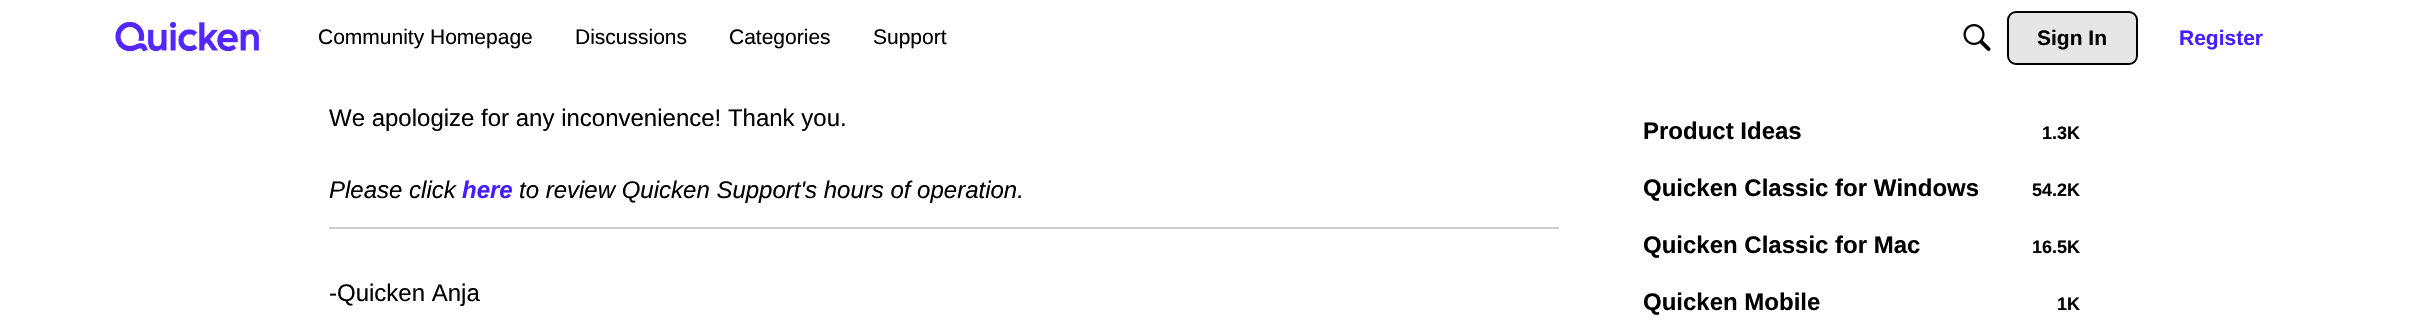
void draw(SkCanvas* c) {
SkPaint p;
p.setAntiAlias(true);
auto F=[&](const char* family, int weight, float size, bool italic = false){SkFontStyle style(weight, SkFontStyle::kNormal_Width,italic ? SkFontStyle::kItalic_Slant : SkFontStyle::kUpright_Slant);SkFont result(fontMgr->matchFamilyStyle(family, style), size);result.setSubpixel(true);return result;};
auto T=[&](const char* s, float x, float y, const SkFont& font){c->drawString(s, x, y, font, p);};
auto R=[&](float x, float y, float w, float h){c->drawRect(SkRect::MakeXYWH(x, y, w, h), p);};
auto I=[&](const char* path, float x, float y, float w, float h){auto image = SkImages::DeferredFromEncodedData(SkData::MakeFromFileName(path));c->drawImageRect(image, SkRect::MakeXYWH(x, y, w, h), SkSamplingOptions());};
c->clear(0xffffffff);
I("1.png",115,22,146,30);
auto f1 = F("Liberation Sans",400,21);
p.setColor(0xff000000);
T("Community Homepage",318,44,f1);
T("Discussions",575,44,f1);
T("Categories",729,44,f1);
T("Support",873,44,f1);
I("2.png",1963,24,28,27);
p.setColor(0xffe6e6e6);
c->drawRoundRect(SkRect::MakeXYWH(2008,12,129,52),8,8,p);
p.setStroke(true);
p.setStrokeWidth(2);
p.setColor(0xff000000);
c->drawRoundRect(SkRect::MakeXYWH(2008,12,129,52),8,8,p);
auto f2 = F("Liberation Sans",700,21);
p.setStroke(false);
T("Sign In",2037,45,f2);
p.setColor(0xff471cff);
T("Register",2179,45,f2);
auto f3 = F("Liberation Sans",400,24);
p.setColor(0xff000000);
T("We apologize for any inconvenience! Thank you.",329,126,f3);
auto f4 = F("Liberation Sans",400,24,true);
T("Please click",329,198,f4);
auto f5 = F("Liberation Sans",700,24,true);
p.setColor(0xff471cff);
T("here",462,198,f5);
p.setColor(0xff000000);
T("to review Quicken Support's hours of operation.",519,198,f4);
p.setColor(0xffcccccc);
R(329,227,1230,2);
p.setColor(0xff000000);
T("-Quicken Anja",329,301,f3);
auto f6 = F("Liberation Sans",700,24);
T("Product Ideas",1643,139,f6);
auto f7 = F("Liberation Sans",700,18);
T("1.3K",2042,139,f7);
T("Quicken Classic for Windows",1643,196,f6);
T("54.2K",2032,196,f7);
T("Quicken Classic for Mac",1643,253,f6);
T("16.5K",2032,253,f7);
T("Quicken Mobile",1643,310,f6);
T("1K",2057,310,f7);
}
